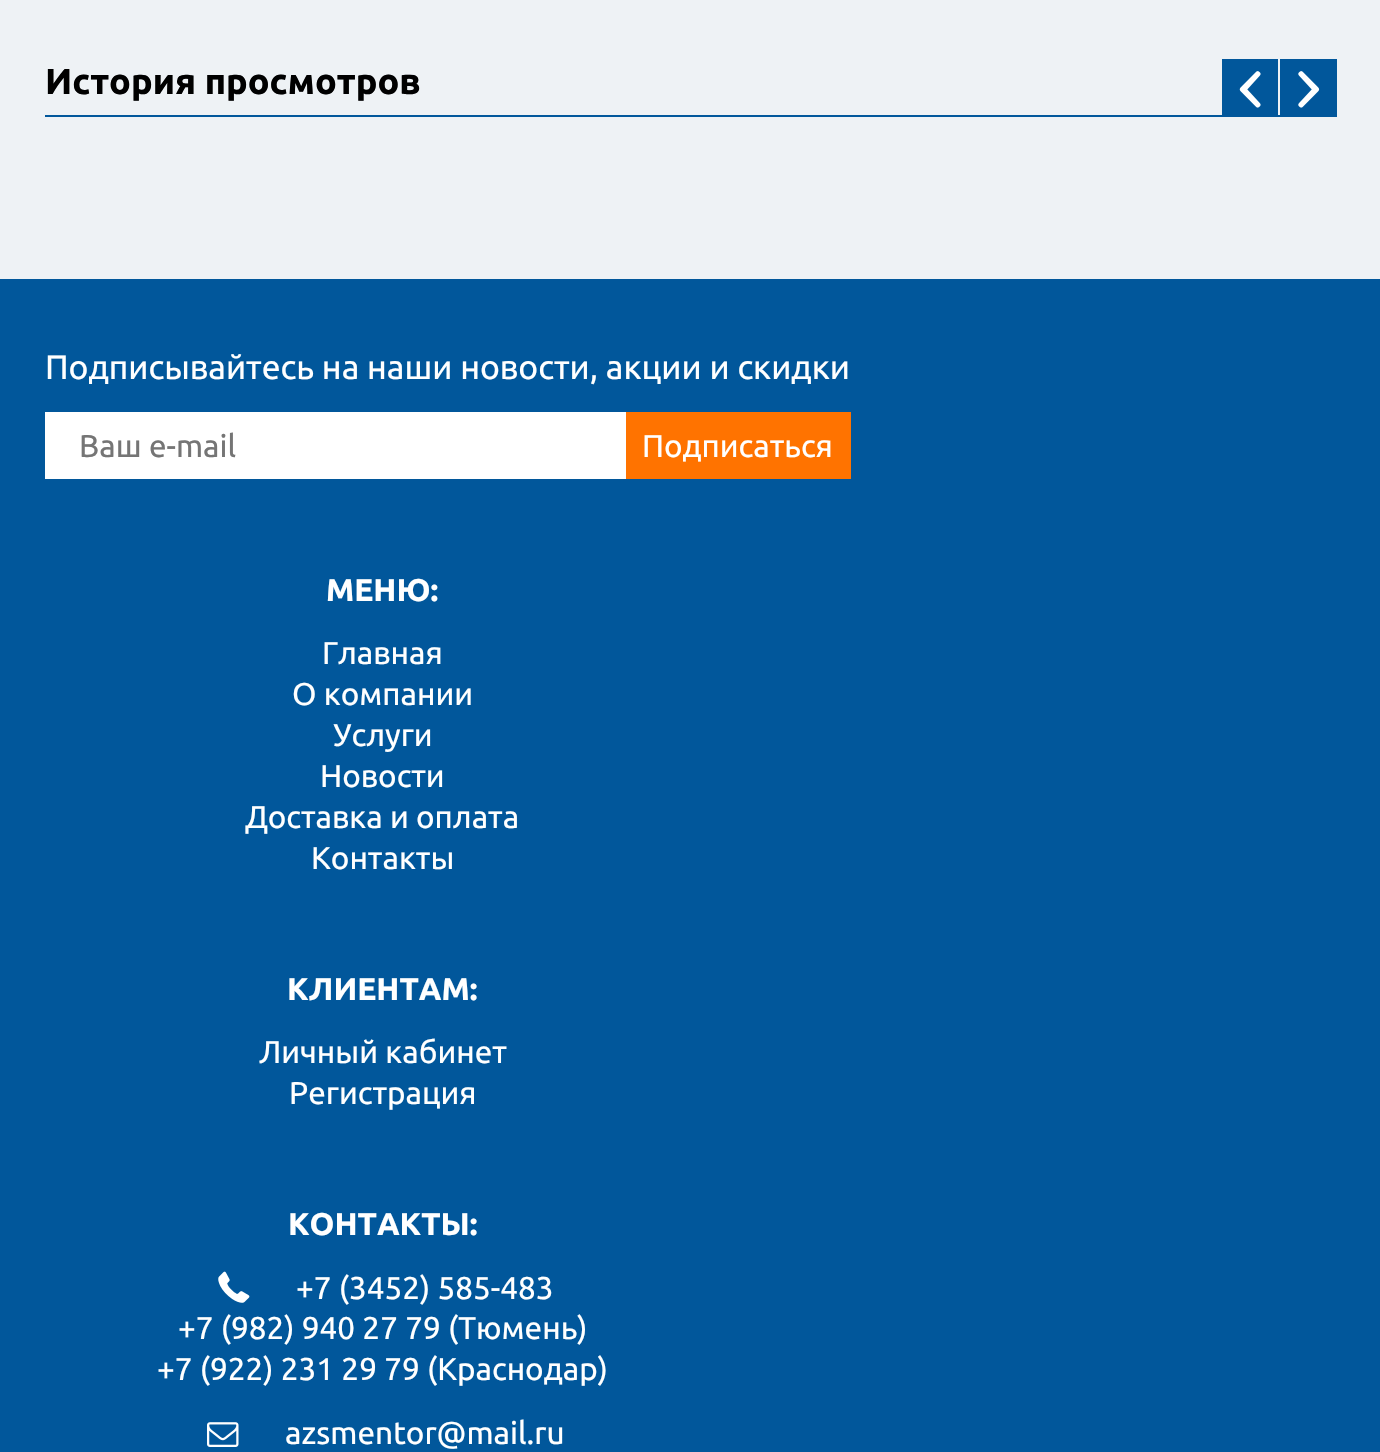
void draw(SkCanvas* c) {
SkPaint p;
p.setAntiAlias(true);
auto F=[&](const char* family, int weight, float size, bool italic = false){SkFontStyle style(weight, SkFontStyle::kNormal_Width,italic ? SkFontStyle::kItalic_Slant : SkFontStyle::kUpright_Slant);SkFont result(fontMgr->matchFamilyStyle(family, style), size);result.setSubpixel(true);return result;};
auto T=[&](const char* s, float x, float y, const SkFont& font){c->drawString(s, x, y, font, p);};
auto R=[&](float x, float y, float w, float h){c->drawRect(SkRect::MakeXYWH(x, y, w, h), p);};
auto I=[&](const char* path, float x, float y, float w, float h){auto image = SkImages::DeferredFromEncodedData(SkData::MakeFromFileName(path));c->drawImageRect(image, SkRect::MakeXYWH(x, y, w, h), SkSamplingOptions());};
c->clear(0xffeef2f5);
p.setColor(0xff01579b);
R(45,115,1292,2);
auto f1 = F("Ubuntu",700,36);
p.setColor(0xff000000);
T("История просмотров",45,94,f1);
p.setColor(0xff01579b);
R(1222,59,56,56);
I("1.png",1239,71,22,37);
R(1280,59,57,56);
I("2.png",1298,71,22,37);
R(0,279,1380,1173);
auto f2 = F("Ubuntu",400,33.75);
p.setColor(0xffffffff);
T("Подписывайтесь на наши новости, акции и скидки",45,379,f2);
R(45,412,581,67);
auto f3 = F("Ubuntu",400,31.5);
p.setColor(0xff757575);
T("Ваш e-mail",79,457,f3);
p.setColor(0xffff7300);
R(626,412,225,67);
p.setColor(0xffffffff);
T("Подписаться",642,457,f3);
auto f4 = F("Ubuntu",700,31.5);
T("МЕНЮ:",326,601,f4);
T("Главная",322,664,f3);
T("О компании",292,705,f3);
T("Услуги",333,746,f3);
T("Новости",320,787,f3);
T("Доставка и оплата",245,828,f3);
T("Контакты",311,869,f3);
T("КЛИЕНТАМ:",287,1000,f4);
T("Личный кабинет",259,1063,f3);
T("Регистрация",289,1104,f3);
T("КОНТАКТЫ:",288,1235,f4);
I("3.png",218,1271,32,32);
T("+7 (3452) 585-483",296,1299,f3);
T("+7 (982) 940 27 79 (Тюмень)",178,1339,f3);
T("+7 (922) 231 29 79 (Краснодар)",157,1380,f3);
I("4.png",207,1422,32,25);
T("azsmentor@mail.ru",285,1444,f3);
}
